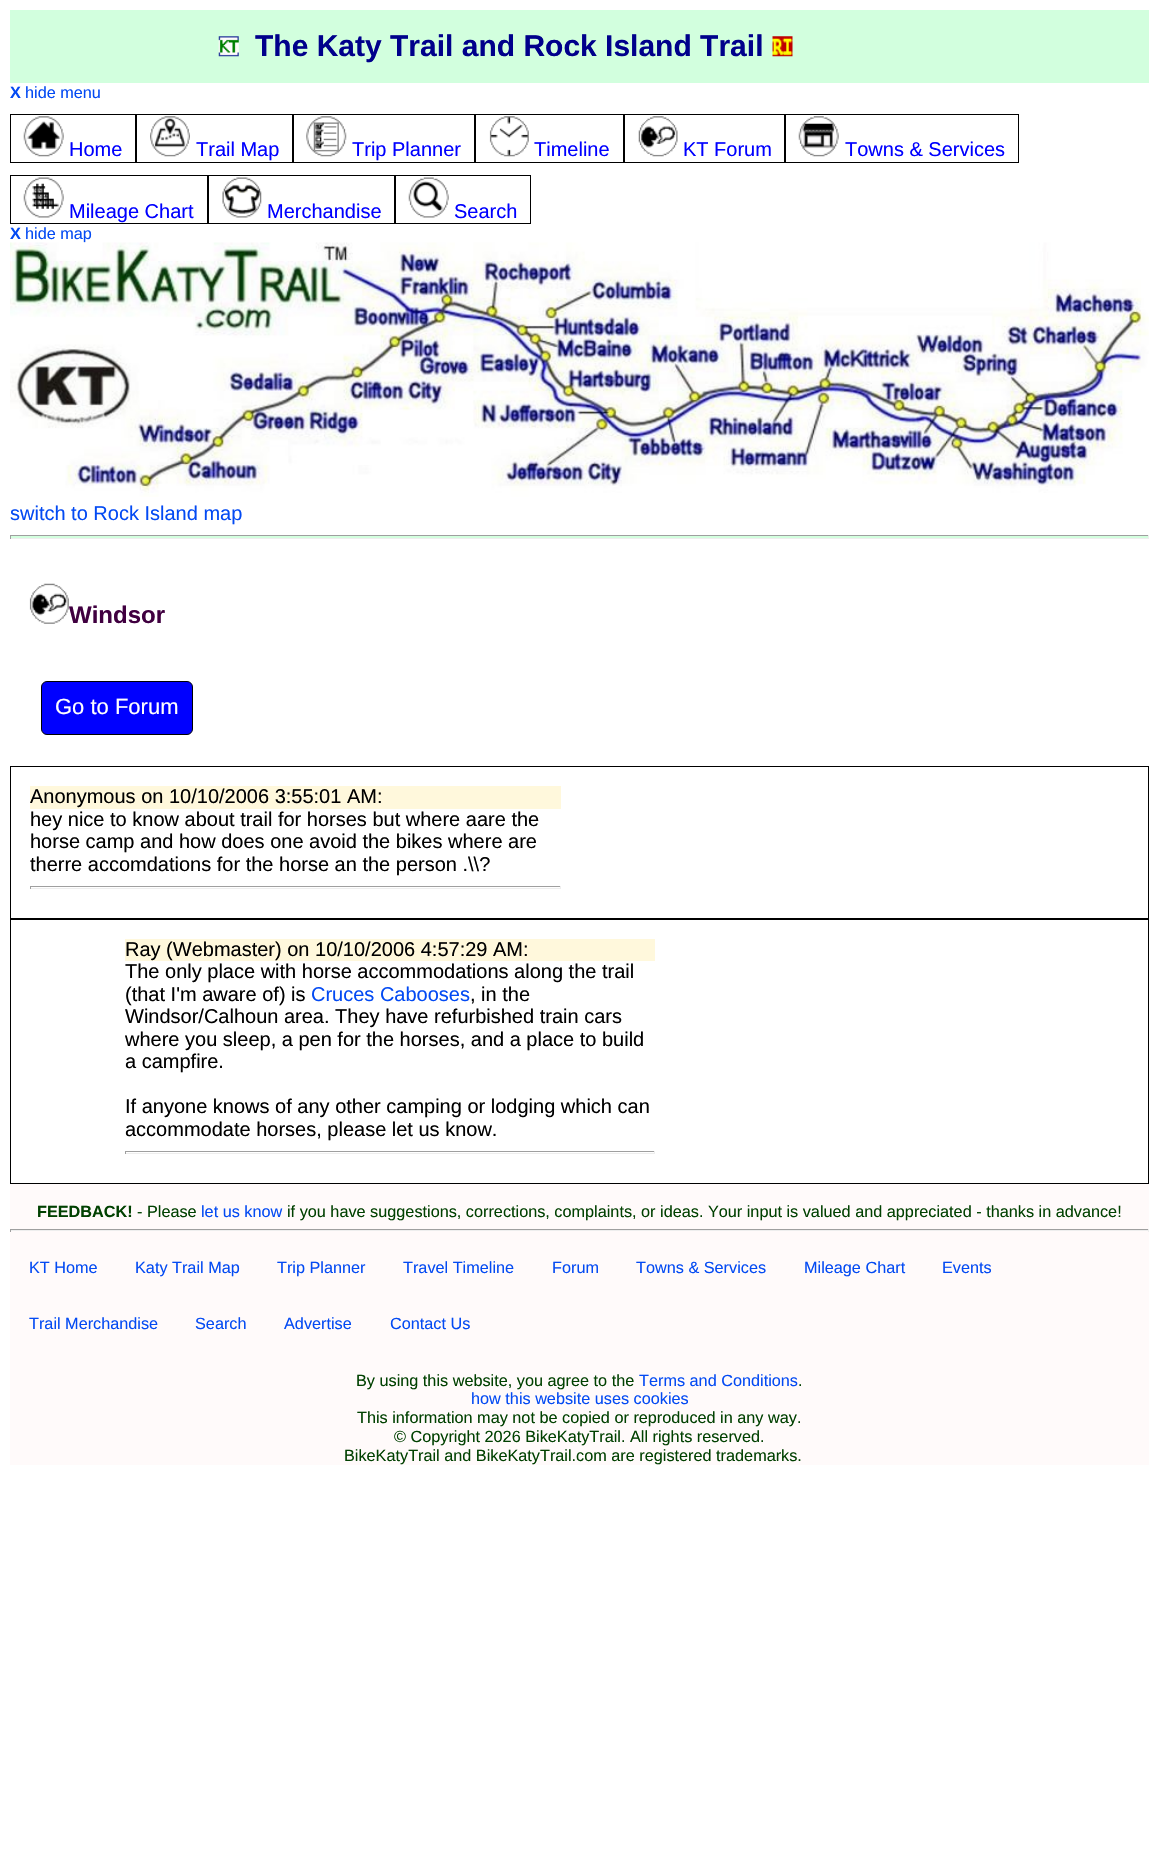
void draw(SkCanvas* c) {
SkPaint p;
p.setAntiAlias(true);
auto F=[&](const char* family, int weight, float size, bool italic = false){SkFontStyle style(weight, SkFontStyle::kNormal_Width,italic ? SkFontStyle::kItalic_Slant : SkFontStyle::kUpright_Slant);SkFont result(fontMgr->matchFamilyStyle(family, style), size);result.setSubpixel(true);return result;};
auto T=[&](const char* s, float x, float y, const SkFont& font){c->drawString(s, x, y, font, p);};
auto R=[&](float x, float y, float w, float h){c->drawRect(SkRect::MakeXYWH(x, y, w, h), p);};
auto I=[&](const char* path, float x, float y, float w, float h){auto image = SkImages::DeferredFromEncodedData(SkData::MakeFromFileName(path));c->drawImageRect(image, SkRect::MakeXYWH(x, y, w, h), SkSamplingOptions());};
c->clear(0xffffffff);
p.setColor(0xffd2ffde);
R(10,10,1139,73);
I("1.png",218,36,21,21);
auto f1 = F("Liberation Sans",700,30);
p.setColor(0xff00008b);
T("The Katy Trail and Rock Island Trail",255,56,f1);
I("2.png",772,36,21,21);
auto f2 = F("Liberation Sans",700,16.25);
p.setColor(0xff034af3);
T("X",10,98,f2);
auto f3 = F("Liberation Sans",400,16.25);
T("hide menu",25,98,f3);
p.setStroke(true);
p.setStrokeWidth(1);
p.setColor(0xff000000);
c->drawRect(SkRect::MakeXYWH(10.5,114.5,125,48),p);
I("3.png",23,116,41,41);
auto f4 = F("Liberation Sans",400,20);
p.setStroke(false);
p.setColor(0xff0000ff);
T("Home",69,156,f4);
p.setStroke(true);
p.setColor(0xff000000);
c->drawRect(SkRect::MakeXYWH(136.5,114.5,156,48),p);
I("4.png",150,116,40,41);
p.setStroke(false);
p.setColor(0xff0000ff);
T("Trail Map",196,156,f4);
p.setStroke(true);
p.setColor(0xff000000);
c->drawRect(SkRect::MakeXYWH(293.5,114.5,181,48),p);
I("5.png",306,116,41,41);
p.setStroke(false);
p.setColor(0xff0000ff);
T("Trip Planner",352,156,f4);
p.setStroke(true);
p.setColor(0xff000000);
c->drawRect(SkRect::MakeXYWH(475.5,114.5,148,48),p);
I("6.png",489,116,40,41);
p.setStroke(false);
p.setColor(0xff0000ff);
T("Timeline",534,156,f4);
p.setStroke(true);
p.setColor(0xff000000);
c->drawRect(SkRect::MakeXYWH(624.5,114.5,160,48),p);
I("7.png",638,116,40,41);
p.setStroke(false);
p.setColor(0xff0000ff);
T("KT Forum",683,156,f4);
p.setStroke(true);
p.setColor(0xff000000);
c->drawRect(SkRect::MakeXYWH(785.5,114.5,233,48),p);
I("8.png",798,116,41,41);
p.setStroke(false);
p.setColor(0xff0000ff);
T("Towns & Services",845,156,f4);
p.setStroke(true);
p.setColor(0xff000000);
c->drawRect(SkRect::MakeXYWH(10.5,175.5,197,48),p);
I("9.png",23,177,41,41);
p.setStroke(false);
p.setColor(0xff0000ff);
T("Mileage Chart",69,218,f4);
p.setStroke(true);
p.setColor(0xff000000);
c->drawRect(SkRect::MakeXYWH(208.5,175.5,186,48),p);
I("10.png",222,177,40,41);
p.setStroke(false);
p.setColor(0xff0000ff);
T("Merchandise",267,218,f4);
p.setStroke(true);
p.setColor(0xff000000);
c->drawRect(SkRect::MakeXYWH(395.5,175.5,135,48),p);
I("11.png",408,177,41,41);
p.setStroke(false);
p.setColor(0xff0000ff);
T("Search",454,218,f4);
p.setColor(0xff034af3);
T("X",10,239,f2);
T("hide map",25,239,f3);
I("12.png",10,242,1139,255);
T("switch to Rock Island map",10,520,f4);
p.setColor(0xffd2ffde);
R(10,536,1139,2);
p.setColor(0xff9f9f9f);
R(10,535,1139,1);
p.setColor(0xffeeeeee);
R(1148,535,1,4);
R(10,538,1139,1);
p.setColor(0xff9f9f9f);
R(10,535,1,4);
I("13.png",29,583,40,41);
auto f5 = F("Liberation Sans",700,24);
p.setColor(0xff400040);
T("Windsor",69,623,f5);
p.setColor(0xff0000ff);
c->drawRoundRect(SkRect::MakeXYWH(41.5,681.5,151,53),5.5,5.5,p);
p.setStroke(true);
p.setColor(0xff000000);
c->drawRoundRect(SkRect::MakeXYWH(41.5,681.5,151,53),5.5,5.5,p);
auto f6 = F("Liberation Sans",400,22);
p.setStroke(false);
p.setColor(0xffffffff);
T("Go to Forum",55,714,f6);
p.setStroke(true);
p.setColor(0xff000000);
c->drawRect(SkRect::MakeXYWH(10.5,766.5,1138,152),p);
p.setStroke(false);
p.setColor(0xfffff8dc);
R(30,786,531,23);
p.setColor(0xff000000);
T("Anonymous on 10/10/2006 3:55:01 AM:",30,803,f4);
T("hey nice to know about trail for horses but where aare the",30,826,f4);
T("horse camp and how does one avoid the bikes where are",30,848,f4);
T("therre accomdations for the horse an the person .\\\\?",30,871,f4);
p.setColor(0xff9f9f9f);
R(30,886,531,1);
p.setColor(0xffeeeeee);
R(560,886,1,3);
R(30,888,531,1);
p.setColor(0xff9f9f9f);
R(30,886,1,3);
p.setStroke(true);
p.setColor(0xff000000);
c->drawRect(SkRect::MakeXYWH(10.5,919.5,1138,264),p);
p.setStroke(false);
p.setColor(0xfffff8dc);
R(125,939,530,22);
p.setColor(0xff000000);
T("Ray (Webmaster) on 10/10/2006 4:57:29 AM:",125,956,f4);
T("The only place with horse accommodations along the trail",125,978,f4);
T("(that I'm aware of) is",125,1001,f4);
p.setColor(0xff034af3);
T("Cruces Cabooses",311,1001,f4);
p.setColor(0xff000000);
T(", in the",470,1001,f4);
T("Windsor/Calhoun area. They have refurbished train cars",125,1023,f4);
T("where you sleep, a pen for the horses, and a place to build",125,1046,f4);
T("a campfire.",125,1068,f4);
T("If anyone knows of any other camping or lodging which can",125,1113,f4);
T("accommodate horses, please let us know.",125,1136,f4);
p.setColor(0xff9f9f9f);
R(125,1151,530,1);
p.setColor(0xffeeeeee);
R(654,1151,1,3);
R(125,1153,530,1);
p.setColor(0xff9f9f9f);
R(125,1151,1,3);
p.setColor(0xfffffafa);
R(10,1184,1139,281);
p.setColor(0xff014101);
T("FEEDBACK!",37,1217,f2);
T("- Please",137,1217,f3);
p.setColor(0xff034af3);
T("let us know",201,1217,f3);
p.setColor(0xff014101);
T("if you have suggestions, corrections, complaints, or ideas. Your input is valued and appreciated - thanks in advance!",287,1217,f3);
p.setColor(0xff9f9f9f);
R(10,1229,1139,1);
p.setColor(0xffeeeeee);
R(1148,1229,1,3);
R(10,1230,1139,1);
p.setColor(0xff9f9f9f);
R(10,1229,1,3);
p.setColor(0xff034af3);
T("KT Home",29,1273,f3);
T("Katy Trail Map",135,1273,f3);
T("Trip Planner",277,1273,f3);
T("Travel Timeline",403,1273,f3);
T("Forum",552,1273,f3);
T("Towns & Services",636,1273,f3);
T("Mileage Chart",804,1273,f3);
T("Events",942,1273,f3);
T("Trail Merchandise",29,1329,f3);
T("Search",195,1329,f3);
T("Advertise",284,1329,f3);
T("Contact Us",390,1329,f3);
p.setColor(0xff014101);
T("By using this website, you agree to the",356,1386,f3);
p.setColor(0xff034af3);
T("Terms and Conditions",639,1386,f3);
p.setColor(0xff014101);
T(".",798,1386,f3);
p.setColor(0xff034af3);
T("how this website uses cookies",471,1404,f3);
p.setColor(0xff014101);
T("This information may not be copied or reproduced in any way.",357,1423,f3);
T("© Copyright 2026 BikeKatyTrail. All rights reserved.",394,1442,f3);
T("BikeKatyTrail and BikeKatyTrail.com are registered trademarks.",344,1461,f3);
}
